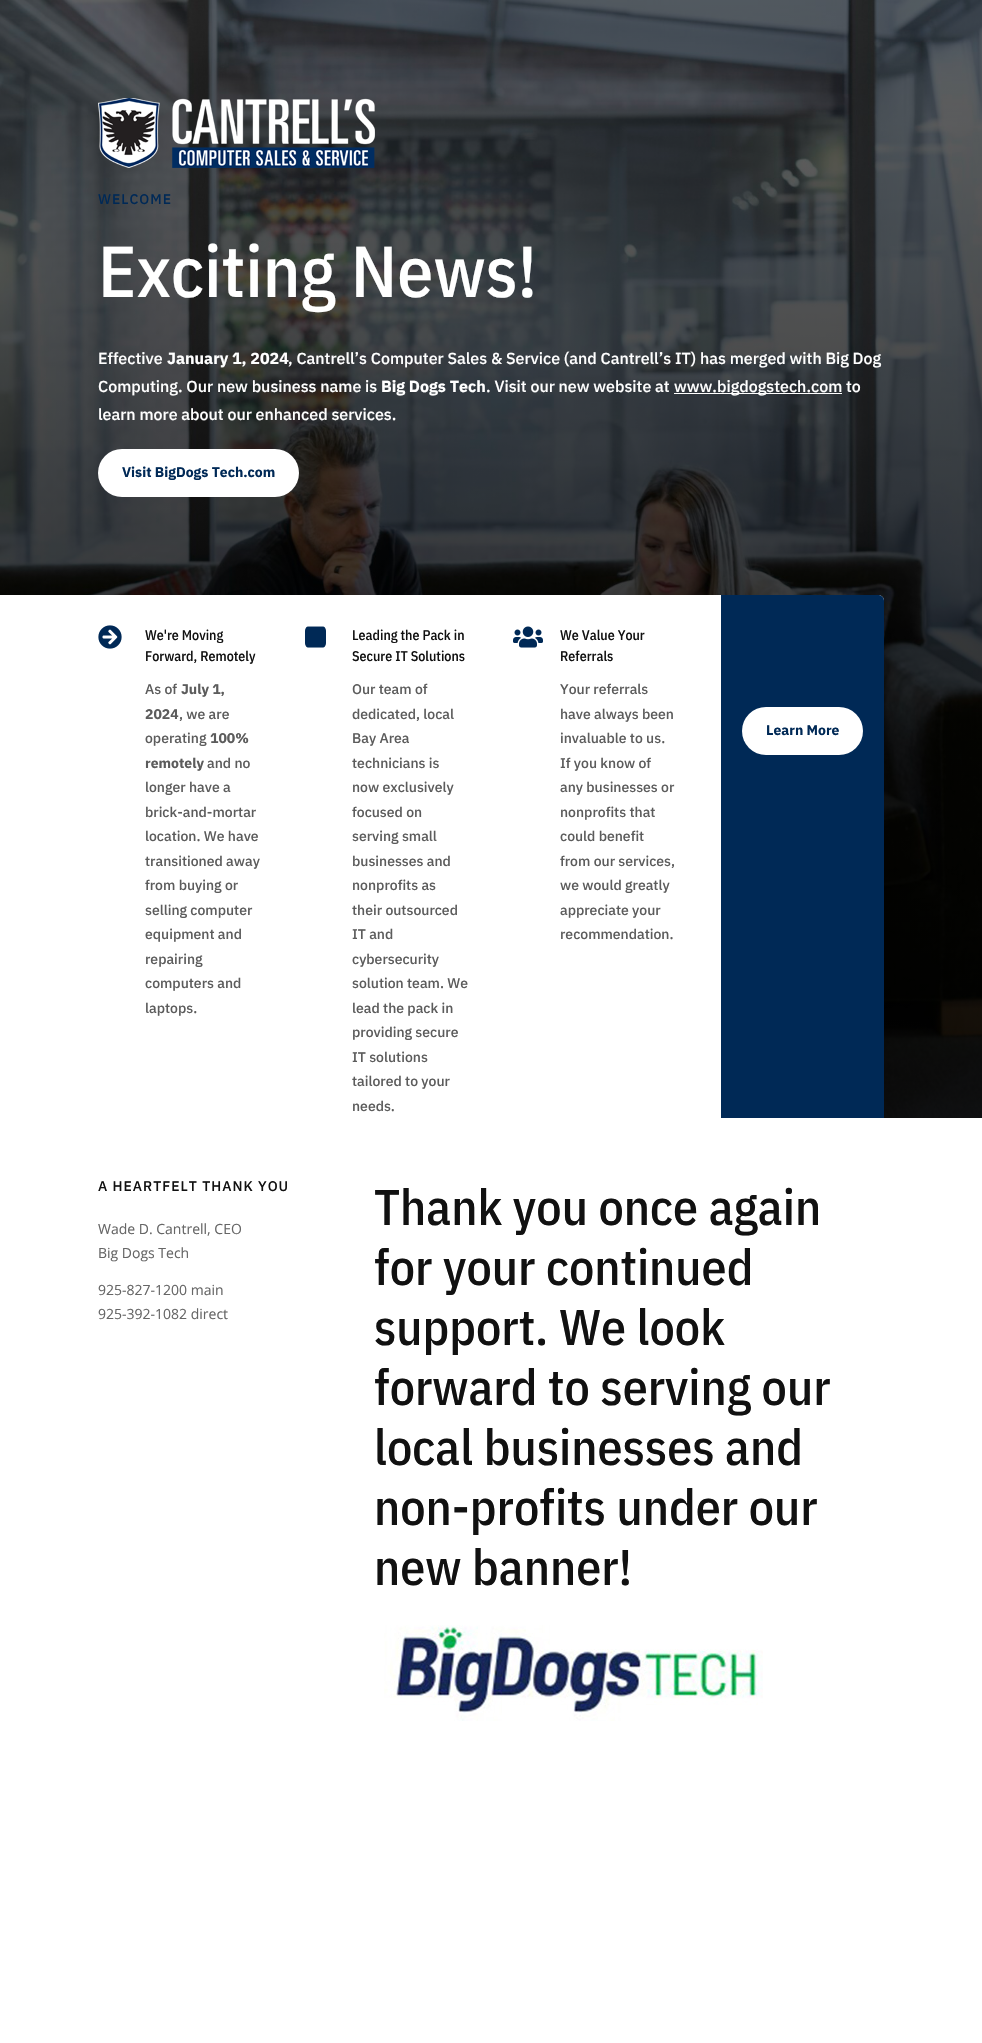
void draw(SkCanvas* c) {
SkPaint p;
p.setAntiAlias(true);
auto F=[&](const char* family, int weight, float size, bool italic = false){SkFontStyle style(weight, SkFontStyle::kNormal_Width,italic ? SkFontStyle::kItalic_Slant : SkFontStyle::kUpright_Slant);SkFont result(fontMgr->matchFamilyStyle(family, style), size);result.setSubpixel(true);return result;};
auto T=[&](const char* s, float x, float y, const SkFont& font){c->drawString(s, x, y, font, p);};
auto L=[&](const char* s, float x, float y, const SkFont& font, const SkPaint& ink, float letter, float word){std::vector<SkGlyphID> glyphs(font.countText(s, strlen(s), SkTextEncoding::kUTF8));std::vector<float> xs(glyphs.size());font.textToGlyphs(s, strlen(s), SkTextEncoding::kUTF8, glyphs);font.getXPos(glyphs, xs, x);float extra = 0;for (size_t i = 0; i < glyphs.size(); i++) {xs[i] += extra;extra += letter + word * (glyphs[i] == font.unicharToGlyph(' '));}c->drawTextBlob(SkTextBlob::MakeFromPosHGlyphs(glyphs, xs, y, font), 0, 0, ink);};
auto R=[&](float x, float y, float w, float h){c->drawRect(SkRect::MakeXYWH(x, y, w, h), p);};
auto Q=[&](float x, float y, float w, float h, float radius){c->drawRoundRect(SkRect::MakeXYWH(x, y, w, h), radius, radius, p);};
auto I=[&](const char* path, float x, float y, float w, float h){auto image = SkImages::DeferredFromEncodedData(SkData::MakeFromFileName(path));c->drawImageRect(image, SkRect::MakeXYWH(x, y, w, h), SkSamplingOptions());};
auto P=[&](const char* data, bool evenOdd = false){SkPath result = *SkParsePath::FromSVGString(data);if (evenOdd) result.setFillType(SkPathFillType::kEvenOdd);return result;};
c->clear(0xffffffff);
I("1.png",0,0,982,1118);
I("2.png",98,98,277,70);
auto f1 = F("IBM Plex Sans",500,14);
p.setColor(0xff002956);
L("WELCOME",98,204,f1,p,1,0);
auto f2 = F("IBM Plex Sans Condensed",500,72);
p.setColor(0xffffffff);
T("Exciting News!",98,297,f2);
auto f3 = F("IBM Plex Sans",500,16);
T("Effective",98,364,f3);
auto f4 = F("IBM Plex Sans",700,16);
T("January 1, 2024",167,364,f4);
T(", Cantrell’s Computer Sales & Service (and Cantrell’s IT) has merged with Big Dog",288,364,f3);
T("Computing. Our new business name is",98,392,f3);
T("Big Dogs Tech",381,392,f4);
T(". Visit our new website at",486,392,f3);
R(674,393,168,1);
T("www.bigdogstech.com to",674,392,f3);
T("learn more about our enhanced services.",98,420,f3);
Q(98,449,201,48,24);
auto f5 = F("IBM Plex Sans",700,14);
p.setColor(0xff002956);
T("Visit BigDogs Tech.com",122,477,f5);
p.setColor(0xffffffff);
R(0,595,98,523);
c->drawPath(P("M98 595h780c3.5 0 6 2.5 6 6v517h-786z"),p);
I("3.png",98,625,24,24);
auto f6 = F("IBM Plex Sans Condensed",500,14);
p.setColor(0xff111111);
T("We're Moving",145,640,f6);
T("Forward, Remotely",145,661,f6);
p.setColor(0xff5c5c5c);
T("As of",145,694,f1);
T("July 1,",181,694,f5);
T("2024",145,719,f5);
T(", we are",179,719,f1);
T("operating",145,743,f1);
T("100%",210,743,f5);
T("remotely",145,768,f5);
T("and no",207,768,f1);
T("longer have a",145,792,f1);
T("brick-and-mortar",145,817,f1);
T("location. We have",145,841,f1);
T("transitioned away",145,866,f1);
T("from buying or",145,890,f1);
T("selling computer",145,915,f1);
T("equipment and",145,939,f1);
T("repairing",145,964,f1);
T("computers and",145,988,f1);
T("laptops.",145,1013,f1);
I("4.png",305,626,21,22);
p.setColor(0xff111111);
T("Leading the Pack in",352,640,f6);
T("Secure IT Solutions",352,661,f6);
p.setColor(0xff5c5c5c);
T("Our team of",352,694,f1);
T("dedicated, local",352,719,f1);
T("Bay Area",352,743,f1);
T("technicians is",352,768,f1);
T("now exclusively",352,792,f1);
T("focused on",352,817,f1);
T("serving small",352,841,f1);
T("businesses and",352,866,f1);
T("nonprofits as",352,890,f1);
T("their outsourced",352,915,f1);
T("IT and",352,939,f1);
T("cybersecurity",352,964,f1);
T("solution team. We",352,988,f1);
T("lead the pack in",352,1013,f1);
T("providing secure",352,1037,f1);
T("IT solutions",352,1062,f1);
T("tailored to your",352,1086,f1);
T("needs.",352,1111,f1);
I("5.png",513,626,30,22);
p.setColor(0xff111111);
T("We Value Your",560,640,f6);
T("Referrals",560,661,f6);
p.setColor(0xff5c5c5c);
T("Your referrals",560,694,f1);
T("have always been",560,719,f1);
T("invaluable to us.",560,743,f1);
T("If you know of",560,768,f1);
T("any businesses or",560,792,f1);
T("nonprofits that",560,817,f1);
T("could benefit",560,841,f1);
T("from our services,",560,866,f1);
T("we would greatly",560,890,f1);
T("appreciate your",560,915,f1);
T("recommendation.",560,939,f1);
p.setColor(0xff002956);
c->drawPath(P("M721 595h157c3.5 0 6 2.5 6 6v517h-163z"),p);
p.setColor(0xffffffff);
Q(742,707,121,48,24);
p.setColor(0xff002956);
T("Learn More",766,735,f5);
p.setColor(0xff111111);
L("A HEARTFELT THANK YOU",98,1191,f1,p,1,0);
auto f7 = F("Open Sans",400,14);
p.setColor(0xff666666);
T("Wade D. Cantrell, CEO",98,1234,f7);
T("Big Dogs Tech",98,1258,f7);
T("925-827-1200 main",98,1295,f7);
T("925-392-1082 direct",98,1319,f7);
auto f8 = F("IBM Plex Sans Condensed",500,50);
p.setColor(0xff111111);
T("Thank you once again",374,1225,f8);
T("for your continued",374,1285,f8);
T("support. We look",374,1345,f8);
T("forward to serving our",374,1405,f8);
T("local businesses and",374,1465,f8);
T("non-profits under our",374,1525,f8);
T("new banner!",374,1585,f8);
I("6.png",384,1625,379,96);
}
